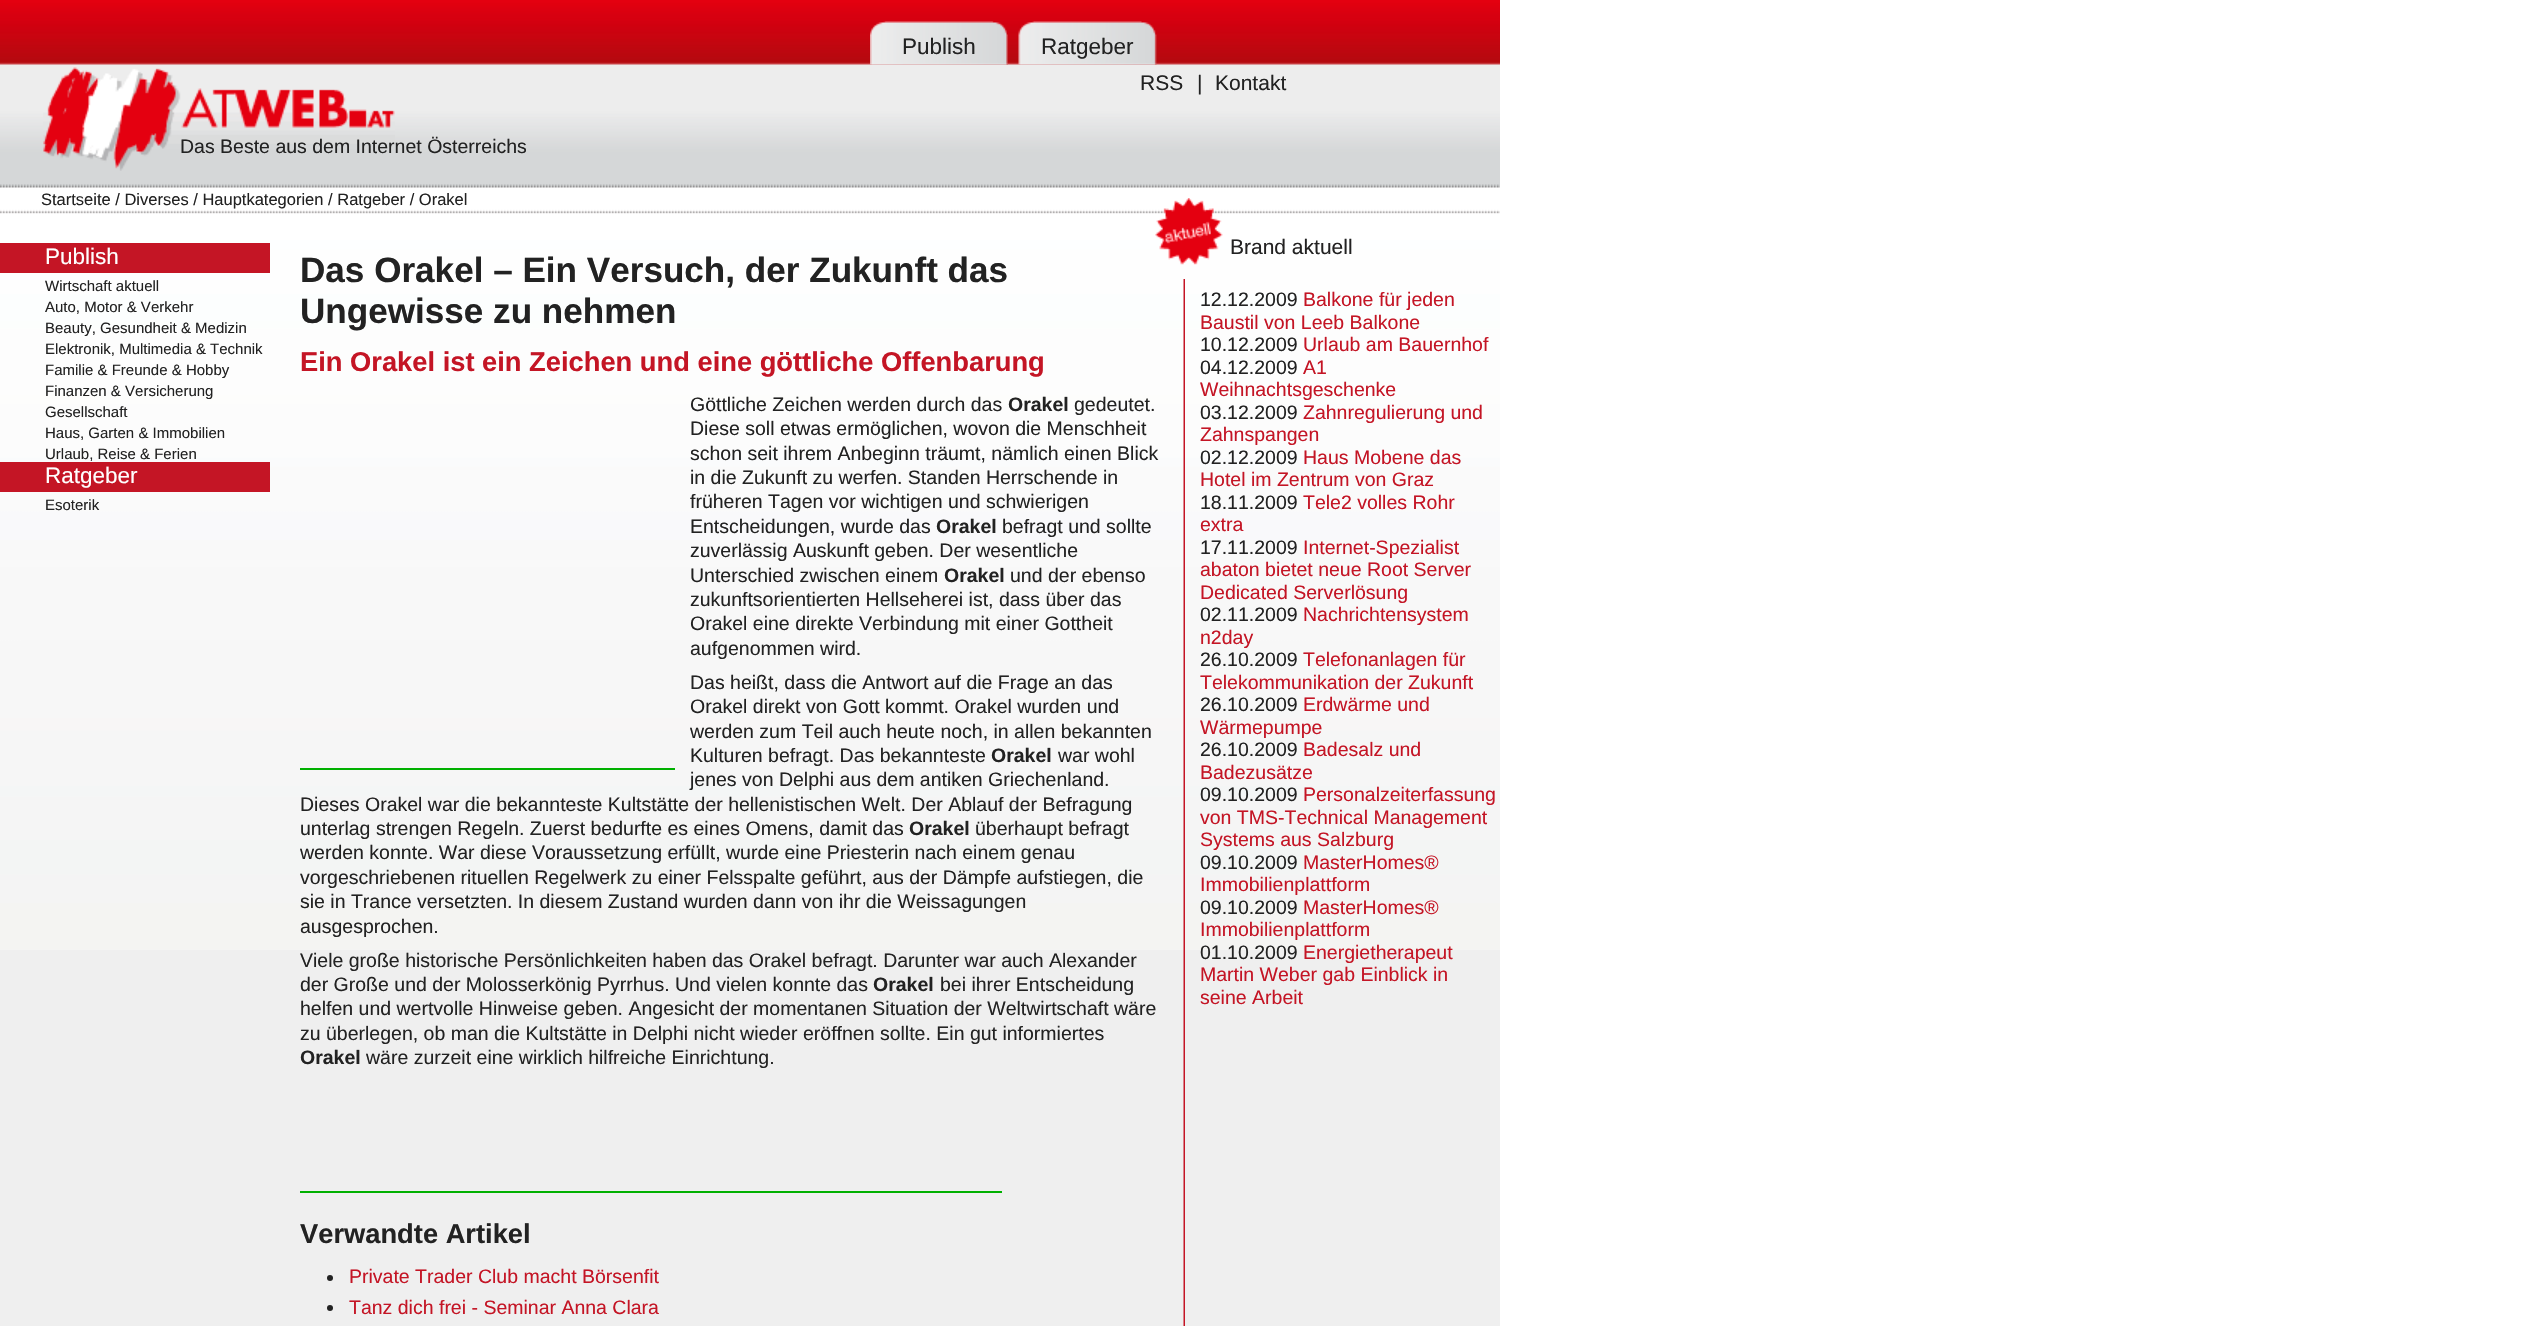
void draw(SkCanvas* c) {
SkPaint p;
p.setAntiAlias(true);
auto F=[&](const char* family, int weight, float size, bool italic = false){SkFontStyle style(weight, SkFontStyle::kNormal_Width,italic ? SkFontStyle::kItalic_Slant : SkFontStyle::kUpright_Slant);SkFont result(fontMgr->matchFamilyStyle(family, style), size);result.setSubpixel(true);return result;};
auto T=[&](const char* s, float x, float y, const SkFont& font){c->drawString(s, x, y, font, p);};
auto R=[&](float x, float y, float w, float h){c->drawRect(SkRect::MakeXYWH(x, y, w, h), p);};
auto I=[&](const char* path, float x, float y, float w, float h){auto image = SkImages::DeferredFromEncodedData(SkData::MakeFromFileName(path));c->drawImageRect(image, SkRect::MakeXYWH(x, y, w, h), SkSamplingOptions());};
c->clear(0xffffffff);
p.setColor(0xffefefef);
R(0,950,1500,376);
I("1.png",0,0,1500,950);
I("2.png",870,21,138,44);
auto f1 = F("Liberation Sans",400,22.5);
p.setColor(0xff222222);
T("Publish",902,54,f1);
I("3.png",1018,21,139,44);
T("Ratgeber",1041,54,f1);
auto f2 = F("Liberation Sans",400,21);
T("RSS",1140,90,f2);
T("|",1197,90,f2);
T("Kontakt",1215,90,f2);
I("4.png",43,67,352,104);
auto f3 = F("Liberation Sans",400,19.5);
T("Das Beste aus dem Internet Österreichs",180,153,f3);
auto f4 = F("Liberation Sans",400,16.5);
T("Startseite / Diverses / Hauptkategorien / Ratgeber / Orakel",41,205,f4);
p.setColor(0xffc41525);
R(0,243,270,30);
p.setColor(0xffffffff);
T("Publish",45,264,f1);
auto f5 = F("Liberation Sans",400,15);
p.setColor(0xff222222);
T("Wirtschaft aktuell",45,291,f5);
T("Auto, Motor & Verkehr",45,312,f5);
T("Beauty, Gesundheit & Medizin",45,333,f5);
T("Elektronik, Multimedia & Technik",45,354,f5);
T("Familie & Freunde & Hobby",45,375,f5);
T("Finanzen & Versicherung",45,396,f5);
T("Gesellschaft",45,417,f5);
T("Haus, Garten & Immobilien",45,438,f5);
T("Urlaub, Reise & Ferien",45,459,f5);
p.setColor(0xffc41525);
R(0,462,270,30);
p.setColor(0xffffffff);
T("Ratgeber",45,483,f1);
p.setColor(0xff222222);
T("Esoterik",45,510,f5);
I("5.png",1183,279,2,1047);
auto f6 = F("Liberation Sans",700,35.1);
T("Das Orakel – Ein Versuch, der Zukunft das",300,282,f6);
T("Ungewisse zu nehmen",300,323,f6);
auto f7 = F("Liberation Sans",700,27.3);
p.setColor(0xffc41525);
T("Ein Orakel ist ein Zeichen und eine göttliche Offenbarung",300,371,f7);
p.setColor(0xff222222);
T("Göttliche Zeichen werden durch das",690,411,f3);
auto f8 = F("Liberation Sans",700,19.5);
T("Orakel",1008,411,f8);
T("gedeutet.",1074,411,f3);
T("Diese soll etwas ermöglichen, wovon die Menschheit",690,435,f3);
T("schon seit ihrem Anbeginn träumt, nämlich einen Blick",690,460,f3);
T("in die Zukunft zu werfen. Standen Herrschende in",690,484,f3);
T("früheren Tagen vor wichtigen und schwierigen",690,508,f3);
T("Entscheidungen, wurde das",690,533,f3);
T("Orakel",936,533,f8);
T("befragt und sollte",1002,533,f3);
T("zuverlässig Auskunft geben. Der wesentliche",690,557,f3);
T("Unterschied zwischen einem",690,582,f3);
T("Orakel",944,582,f8);
T("und der ebenso",1010,582,f3);
T("zukunftsorientierten Hellseherei ist, dass über das",690,606,f3);
T("Orakel eine direkte Verbindung mit einer Gottheit",690,630,f3);
T("aufgenommen wird.",690,655,f3);
T("Das heißt, dass die Antwort auf die Frage an das",690,689,f3);
T("Orakel direkt von Gott kommt. Orakel wurden und",690,713,f3);
T("werden zum Teil auch heute noch, in allen bekannten",690,738,f3);
T("Kulturen befragt. Das bekannteste",690,762,f3);
T("Orakel",991,762,f8);
T("war wohl",1058,762,f3);
T("jenes von Delphi aus dem antiken Griechenland.",690,786,f3);
T("Dieses Orakel war die bekannteste Kultstätte der hellenistischen Welt. Der Ablauf der Befragung",300,811,f3);
T("unterlag strengen Regeln. Zuerst bedurfte es eines Omens, damit das",300,835,f3);
T("Orakel",909,835,f8);
T("überhaupt befragt",975,835,f3);
T("werden konnte. War diese Voraussetzung erfüllt, wurde eine Priesterin nach einem genau",300,859,f3);
T("vorgeschriebenen rituellen Regelwerk zu einer Felsspalte geführt, aus der Dämpfe aufstiegen, die",300,884,f3);
T("sie in Trance versetzten. In diesem Zustand wurden dann von ihr die Weissagungen",300,908,f3);
T("ausgesprochen.",300,933,f3);
T("Viele große historische Persönlichkeiten haben das Orakel befragt. Darunter war auch Alexander",300,967,f3);
T("der Große und der Molosserkönig Pyrrhus. Und vielen konnte das",300,991,f3);
T("Orakel",873,991,f8);
T("bei ihrer Entscheidung",940,991,f3);
T("helfen und wertvolle Hinweise geben. Angesicht der momentanen Situation der Weltwirtschaft wäre",300,1015,f3);
T("zu überlegen, ob man die Kultstätte in Delphi nicht wieder eröffnen sollte. Ein gut informiertes",300,1040,f3);
T("Orakel",300,1064,f8);
T("wäre zurzeit eine wirklich hilfreiche Einrichtung.",366,1064,f3);
p.setColor(0xff00b000);
R(300,768,375,2);
R(300,1191,702,2);
p.setColor(0xff222222);
T("Verwandte Artikel",300,1243,f7);
c->drawCircle(330,1278,3,p);
p.setColor(0xffc41525);
T("Private Trader Club macht Börsenfit",349,1283,f3);
p.setColor(0xff222222);
c->drawCircle(330,1308,3,p);
p.setColor(0xffc41525);
T("Tanz dich frei - Seminar Anna Clara",349,1314,f3);
I("6.png",1155,198,68,81);
p.setColor(0xff222222);
T("Brand aktuell",1230,254,f2);
T("12.12.2009",1200,306,f3);
p.setColor(0xffc41525);
T("Balkone für jeden",1303,306,f3);
T("Baustil von Leeb Balkone",1200,329,f3);
p.setColor(0xff222222);
T("10.12.2009",1200,351,f3);
p.setColor(0xffc41525);
T("Urlaub am Bauernhof",1303,351,f3);
p.setColor(0xff222222);
T("04.12.2009",1200,374,f3);
p.setColor(0xffc41525);
T("A1",1303,374,f3);
T("Weihnachtsgeschenke",1200,396,f3);
p.setColor(0xff222222);
T("03.12.2009",1200,419,f3);
p.setColor(0xffc41525);
T("Zahnregulierung und",1303,419,f3);
T("Zahnspangen",1200,441,f3);
p.setColor(0xff222222);
T("02.12.2009",1200,464,f3);
p.setColor(0xffc41525);
T("Haus Mobene das",1303,464,f3);
T("Hotel im Zentrum von Graz",1200,486,f3);
p.setColor(0xff222222);
T("18.11.2009",1200,509,f3);
p.setColor(0xffc41525);
T("Tele2 volles Rohr",1303,509,f3);
T("extra",1200,531,f3);
p.setColor(0xff222222);
T("17.11.2009",1200,554,f3);
p.setColor(0xffc41525);
T("Internet-Spezialist",1303,554,f3);
T("abaton bietet neue Root Server",1200,576,f3);
T("Dedicated Serverlösung",1200,599,f3);
p.setColor(0xff222222);
T("02.11.2009",1200,621,f3);
p.setColor(0xffc41525);
T("Nachrichtensystem",1303,621,f3);
T("n2day",1200,644,f3);
p.setColor(0xff222222);
T("26.10.2009",1200,666,f3);
p.setColor(0xffc41525);
T("Telefonanlagen für",1303,666,f3);
T("Telekommunikation der Zukunft",1200,689,f3);
p.setColor(0xff222222);
T("26.10.2009",1200,711,f3);
p.setColor(0xffc41525);
T("Erdwärme und",1303,711,f3);
T("Wärmepumpe",1200,734,f3);
p.setColor(0xff222222);
T("26.10.2009",1200,756,f3);
p.setColor(0xffc41525);
T("Badesalz und",1303,756,f3);
T("Badezusätze",1200,779,f3);
p.setColor(0xff222222);
T("09.10.2009",1200,801,f3);
p.setColor(0xffc41525);
T("Personalzeiterfassung",1303,801,f3);
T("von TMS-Technical Management",1200,824,f3);
T("Systems aus Salzburg",1200,846,f3);
p.setColor(0xff222222);
T("09.10.2009",1200,869,f3);
p.setColor(0xffc41525);
T("MasterHomes®",1303,869,f3);
T("Immobilienplattform",1200,891,f3);
p.setColor(0xff222222);
T("09.10.2009",1200,914,f3);
p.setColor(0xffc41525);
T("MasterHomes®",1303,914,f3);
T("Immobilienplattform",1200,936,f3);
p.setColor(0xff222222);
T("01.10.2009",1200,959,f3);
p.setColor(0xffc41525);
T("Energietherapeut",1303,959,f3);
T("Martin Weber gab Einblick in",1200,981,f3);
T("seine Arbeit",1200,1004,f3);
}
